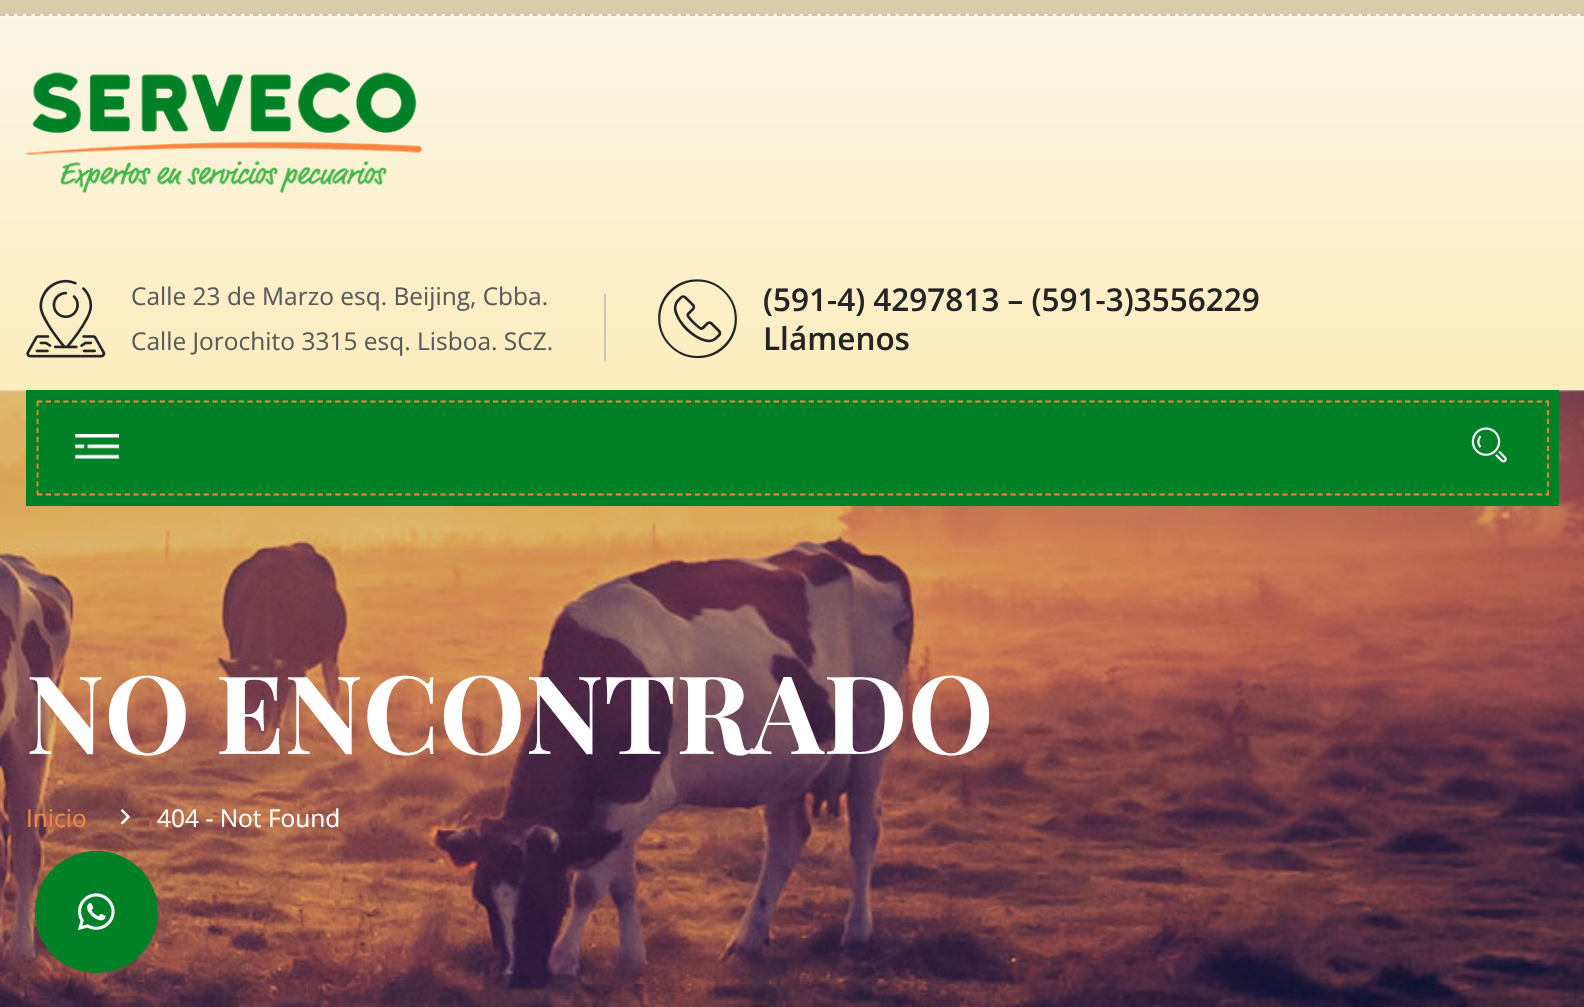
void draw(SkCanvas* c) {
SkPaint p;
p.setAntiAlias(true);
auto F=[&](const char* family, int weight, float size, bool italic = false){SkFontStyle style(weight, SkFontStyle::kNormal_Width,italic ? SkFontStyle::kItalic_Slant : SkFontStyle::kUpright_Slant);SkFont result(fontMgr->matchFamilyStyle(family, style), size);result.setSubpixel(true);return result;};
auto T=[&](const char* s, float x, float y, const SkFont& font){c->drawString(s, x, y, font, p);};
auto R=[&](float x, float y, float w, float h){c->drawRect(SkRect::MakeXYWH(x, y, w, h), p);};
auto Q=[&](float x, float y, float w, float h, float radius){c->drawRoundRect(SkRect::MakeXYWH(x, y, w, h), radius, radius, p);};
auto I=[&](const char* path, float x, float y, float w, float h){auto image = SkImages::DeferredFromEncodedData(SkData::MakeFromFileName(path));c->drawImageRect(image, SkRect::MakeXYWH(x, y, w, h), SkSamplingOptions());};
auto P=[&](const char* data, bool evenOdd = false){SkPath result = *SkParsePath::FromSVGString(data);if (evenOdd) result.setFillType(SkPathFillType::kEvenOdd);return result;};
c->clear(0xffffffff);
{
const SkColor colors[] = {0xfffcedbe,0xfffbf6e5};
const float stops[] = {0,1};
const SkPoint ends[] = {{793,390}, {793,14}};
p.setShader(SkGradientShader::MakeLinear(ends, colors, stops, 2, SkTileMode::kClamp));
p.setAlpha(255);
}
R(0,14,1584,376);
p.setShader(nullptr);
p.setColor(0xffd8cda9);
R(0,0,1584,14);
p.setStroke(true);
p.setStrokeWidth(1.8);
p.setColor(0xffcbbfb1);
p.setPathEffect(SkDashPathEffect::Make({{5.25f,3.48f}}, 0));
c->drawPath(P("M0 15h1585.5"),p);
p.setPathEffect(nullptr);
I("1.png",26,72,396,121);
I("2.png",26,279,80,79);
auto f1 = F("Open Sans",400,24.5);
p.setStroke(false);
p.setColor(0xff595959);
T("Calle 23 de Marzo esq. Beijing, Cbba.",131,305,f1);
T("Calle Jorochito 3315 esq. Lisboa. SCZ.",131,350,f1);
p.setColor(0xffc8c3b3);
R(604,294,2,67);
I("3.png",658,279,79,80);
auto f2 = F("Open Sans",600,31.5);
p.setColor(0xff242424);
T("(591-4) 4297813 – (591-3)3556229",763,311,f2);
T("Llámenos",763,350,f2);
I("6.png",0,390,1584,617);
p.setColor(0xff008027);
R(26,390,1533,116);
p.setStroke(true);
p.setColor(0xfff9843f);
p.setPathEffect(SkDashPathEffect::Make({{5.25f,3.52f}}, 0));
c->drawPath(P("M37 401.5h1512"),p);
p.setPathEffect(nullptr);
p.setPathEffect(SkDashPathEffect::Make({{5.25f,3.68f}}, 0));
c->drawPath(P("M1548 401v94"),p);
p.setPathEffect(nullptr);
p.setPathEffect(SkDashPathEffect::Make({{5.25f,3.52f}}, 0));
c->drawPath(P("M37 494.5h1512"),p);
p.setPathEffect(nullptr);
p.setPathEffect(SkDashPathEffect::Make({{5.25f,3.68f}}, 0));
c->drawPath(P("M37.5 401v94"),p);
p.setPathEffect(nullptr);
I("4.png",75,434,44,25);
I("5.png",1471,427,36,36);
auto f3 = F("Playfair Display",700,108.5);
p.setStroke(false);
p.setColor(0xffffffff);
T("NO ENCONTRADO",26,754,f3);
p.setColor(0xfff9843f);
T("Inicio",26,827,f1);
I("7.png",120,809,10,16);
p.setColor(0xffffffff);
T("404 - Not Found",157,827,f1);
p.setColor(0xff008027);
Q(35,851,123,122,61);
I("8.png",78,893,37,37);
}
